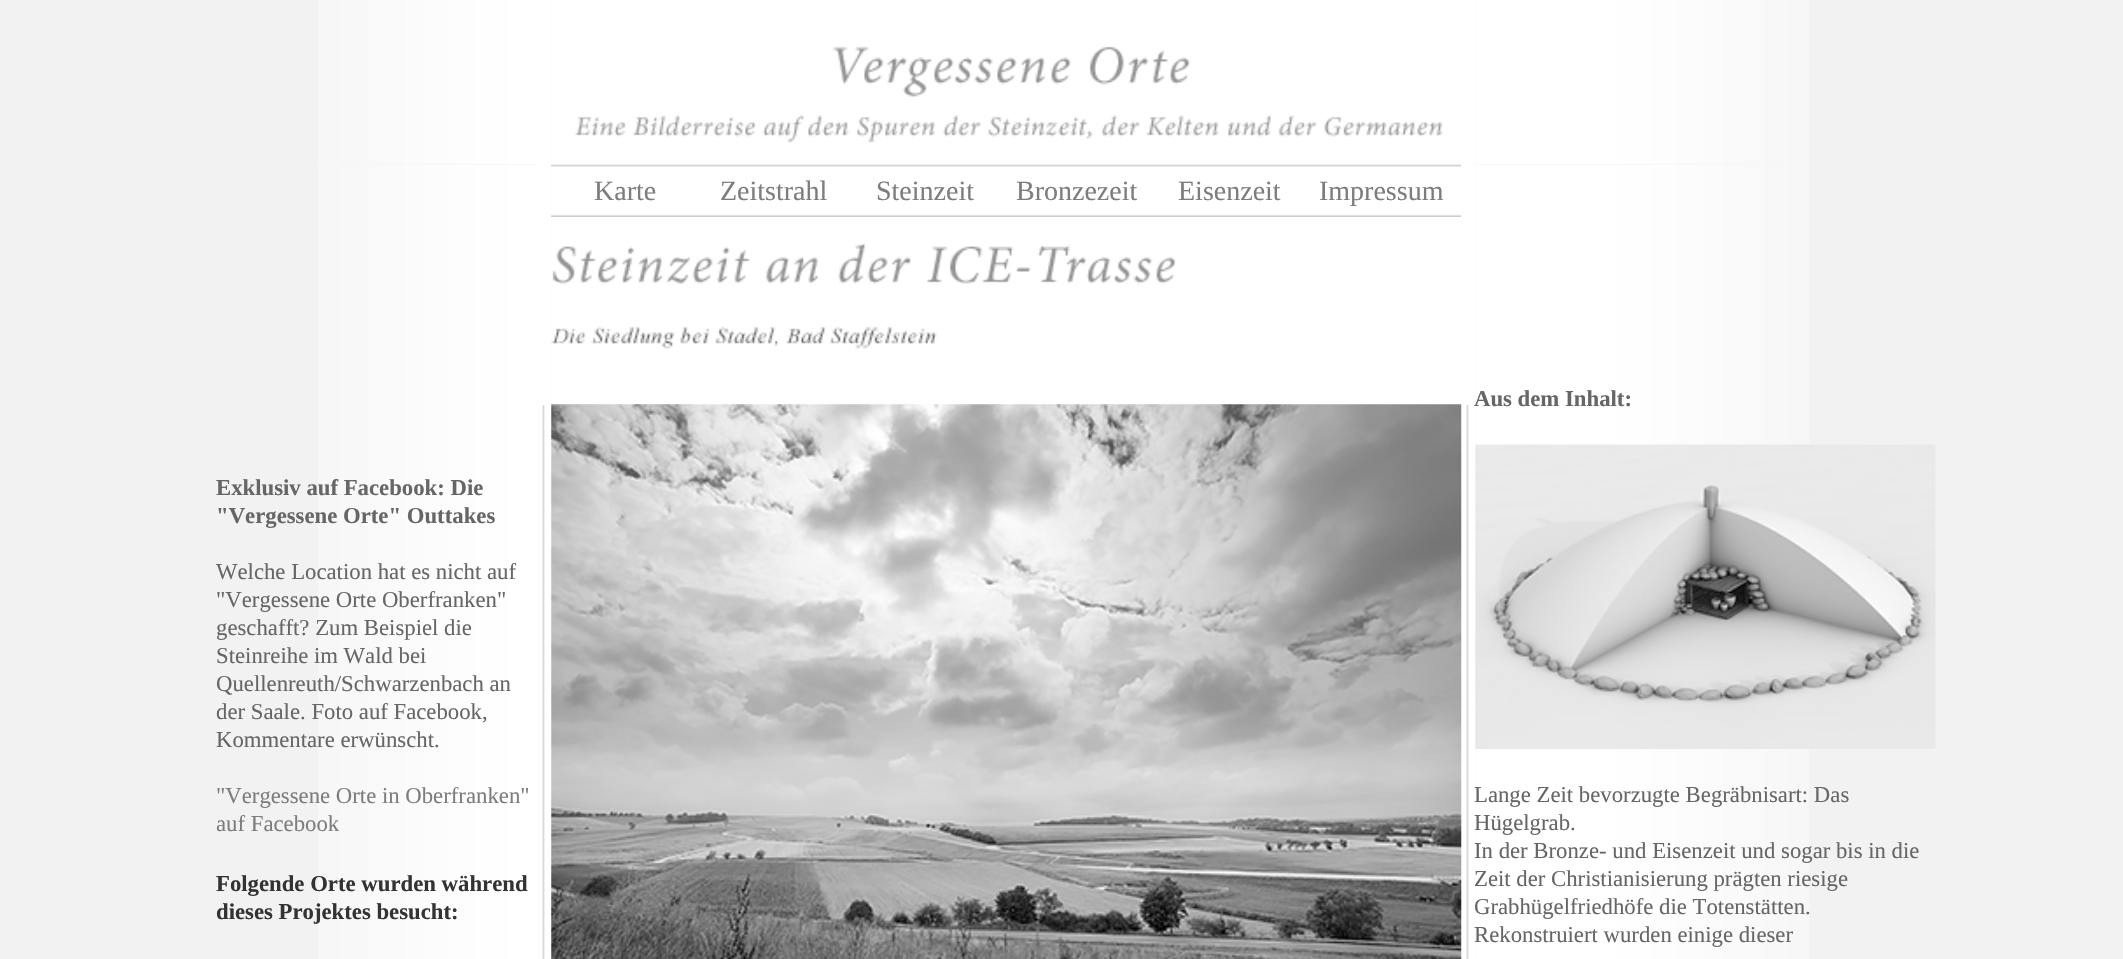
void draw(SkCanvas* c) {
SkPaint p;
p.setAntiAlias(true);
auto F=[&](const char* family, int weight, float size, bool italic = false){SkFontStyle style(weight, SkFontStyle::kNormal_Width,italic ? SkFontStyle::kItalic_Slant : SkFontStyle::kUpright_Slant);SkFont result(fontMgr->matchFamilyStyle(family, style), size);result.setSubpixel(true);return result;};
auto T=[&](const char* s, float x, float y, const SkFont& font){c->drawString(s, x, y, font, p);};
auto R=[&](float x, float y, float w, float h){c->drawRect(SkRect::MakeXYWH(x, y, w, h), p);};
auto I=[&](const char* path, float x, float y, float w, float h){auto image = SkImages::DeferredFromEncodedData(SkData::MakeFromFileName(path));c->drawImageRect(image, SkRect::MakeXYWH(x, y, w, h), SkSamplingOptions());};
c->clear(0xfff2f2f2);
I("1.png",318,0,219,164);
I("4.png",551,164,910,53);
I("2.png",551,0,910,165);
I("3.png",1475,0,334,164);
p.setColor(0xffffffff);
R(537,0,14,405);
auto f1 = F("Liberation Serif",400,28);
p.setColor(0xff7d7d7d);
T("Karte",594,200,f1);
T("Zeitstrahl",720,200,f1);
T("Steinzeit",876,200,f1);
T("Bronzezeit",1016,200,f1);
T("Eisenzeit",1178,200,f1);
T("Impressum",1319,200,f1);
p.setColor(0xffffffff);
R(1461,0,14,217);
I("5.png",318,164,219,795);
auto f2 = F("Liberation Serif",700,22.75);
p.setColor(0xff666666);
T("Exklusiv auf Facebook: Die",216,495,f2);
T("\"Vergessene Orte\" Outtakes",216,523,f2);
auto f3 = F("Liberation Serif",400,22.75);
T("Welche Location hat es nicht auf",216,579,f3);
T("\"Vergessene Orte Oberfranken\"",216,607,f3);
T("geschafft? Zum Beispiel die",216,635,f3);
T("Steinreihe im Wald bei",216,663,f3);
T("Quellenreuth/Schwarzenbach an",216,691,f3);
T("der Saale. Foto auf Facebook,",216,719,f3);
T("Kommentare erwünscht.",216,747,f3);
p.setColor(0xff7d7d7d);
T("\"Vergessene Orte in Oberfranken\"",216,803,f3);
T("auf Facebook",216,831,f3);
p.setColor(0xff333333);
T("Folgende Orte wurden während",216,891,f2);
T("dieses Projektes besucht:",216,919,f2);
I("6.png",1475,164,334,795);
I("11.png",1461,405,14,554);
p.setColor(0xff666666);
T("Aus dem Inhalt:",1474,406,f2);
I("7.png",1475,444,461,305);
T("Lange Zeit bevorzugte Begräbnisart: Das",1474,802,f3);
T("Hügelgrab.",1474,830,f3);
T("In der Bronze- und Eisenzeit und sogar bis in die",1474,858,f3);
T("Zeit der Christianisierung prägten riesige",1474,886,f3);
T("Grabhügelfriedhöfe die Totenstätten.",1474,914,f3);
T("Rekonstruiert wurden einige dieser",1474,942,f3);
I("8.png",551,217,910,187);
p.setColor(0xffffffff);
R(1461,217,14,188);
I("9.png",537,405,14,554);
R(551,404,910,555);
I("10.png",551,404,911,555);
}
